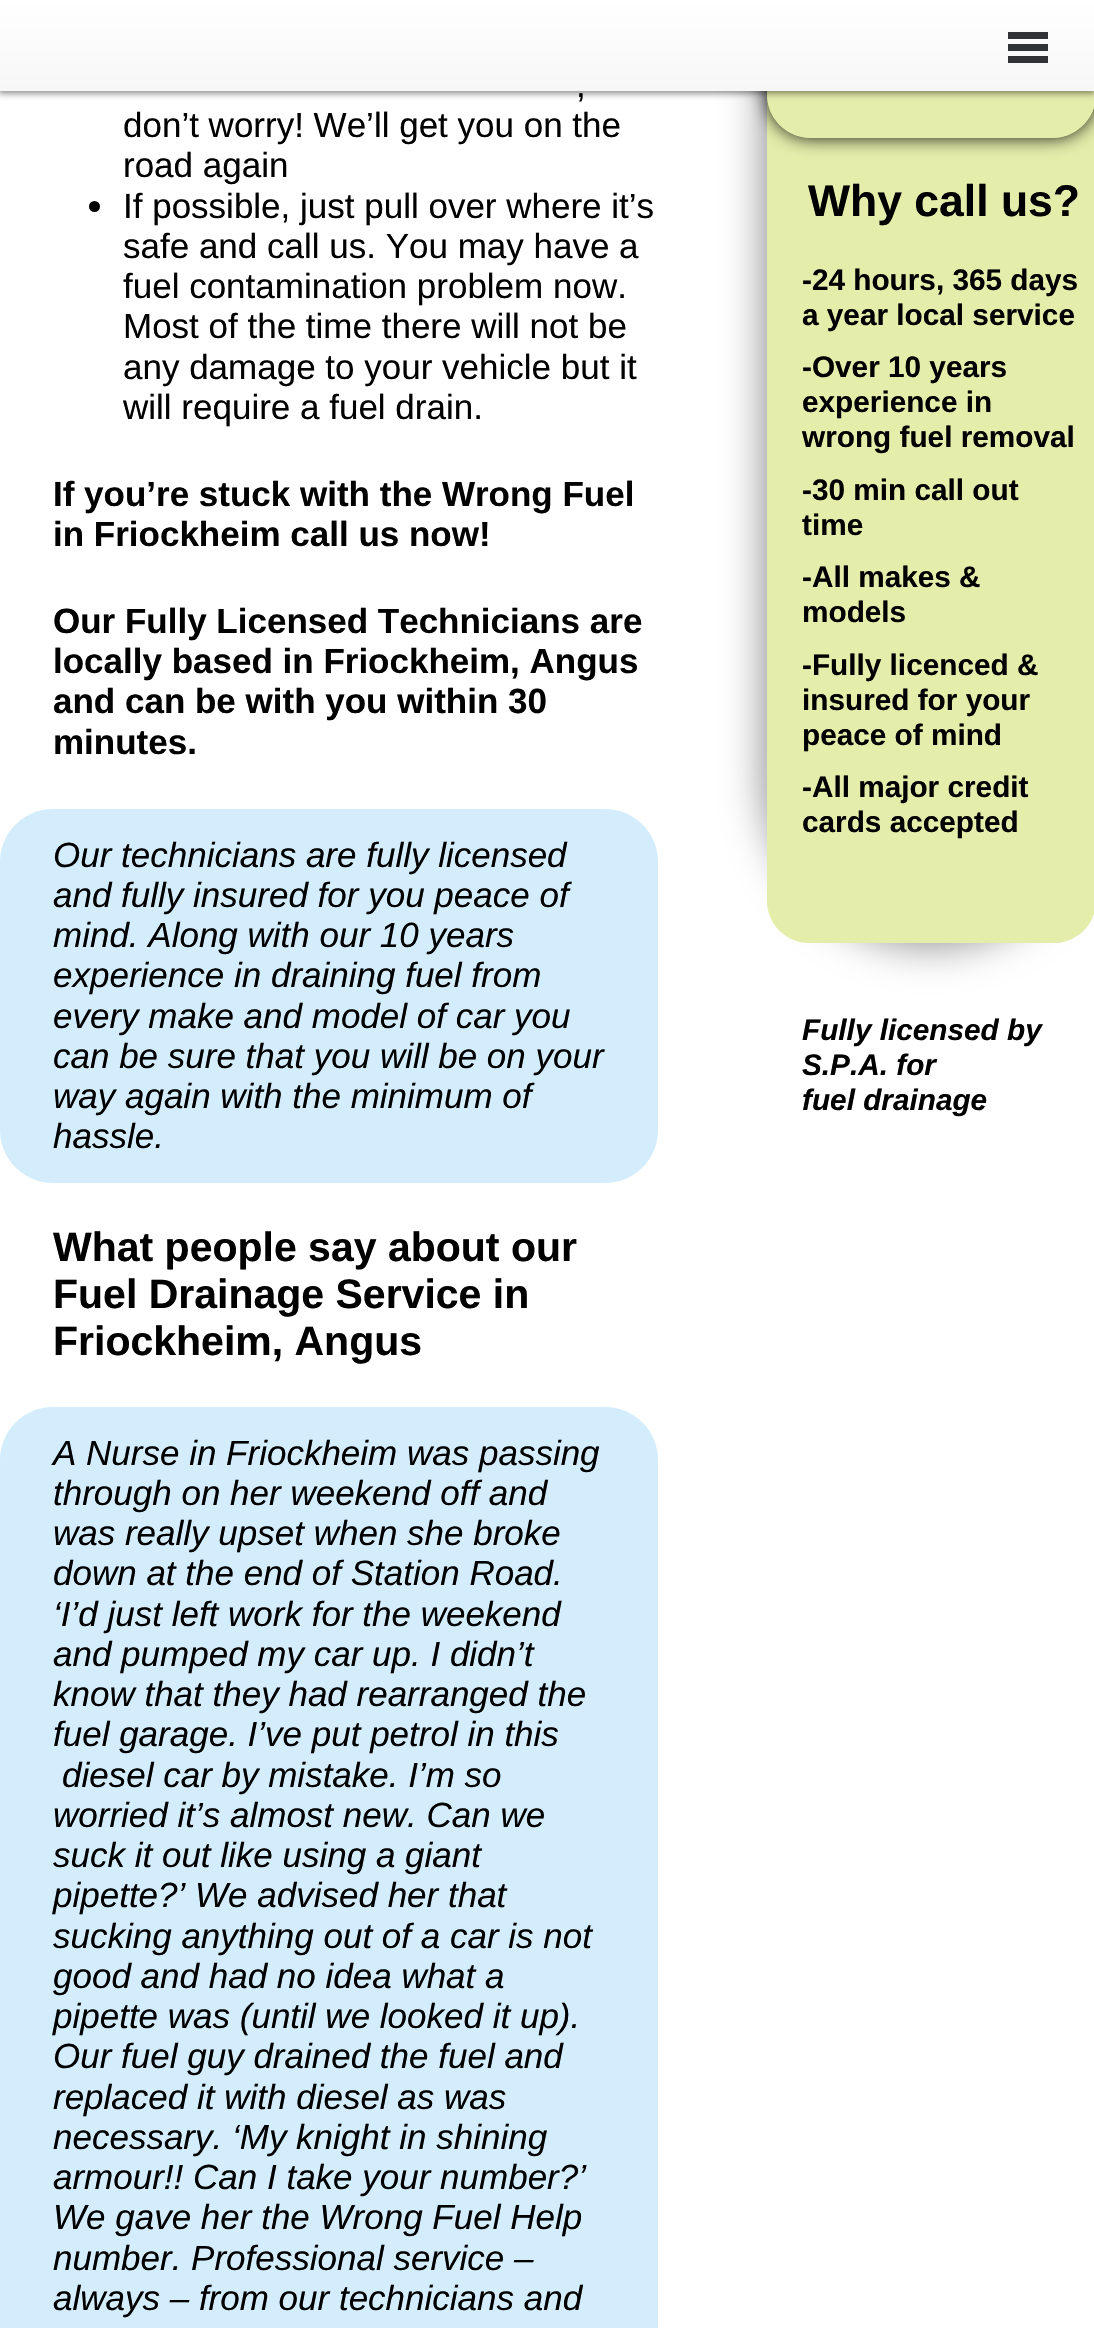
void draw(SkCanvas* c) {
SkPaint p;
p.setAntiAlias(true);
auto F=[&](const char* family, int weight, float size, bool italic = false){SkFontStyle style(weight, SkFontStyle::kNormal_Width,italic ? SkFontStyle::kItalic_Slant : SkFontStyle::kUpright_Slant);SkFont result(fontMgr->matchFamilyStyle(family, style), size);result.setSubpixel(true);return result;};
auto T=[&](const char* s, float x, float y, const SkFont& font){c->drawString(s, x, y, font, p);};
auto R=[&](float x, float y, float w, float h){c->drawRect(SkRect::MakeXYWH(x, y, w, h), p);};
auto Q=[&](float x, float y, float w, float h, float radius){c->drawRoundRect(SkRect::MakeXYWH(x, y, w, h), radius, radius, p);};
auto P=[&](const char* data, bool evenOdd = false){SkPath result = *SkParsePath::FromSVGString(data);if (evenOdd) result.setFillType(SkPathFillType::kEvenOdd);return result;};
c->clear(0xffffffff);
p.setColor(0x80000000);
p.setMaskFilter(SkMaskFilter::MakeBlur(kNormal_SkBlurStyle, 22));
c->drawRoundRect(SkRect::MakeXYWH(767,-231,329,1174),164.5,164.5,p);
p.setMaskFilter(nullptr);
p.setColor(0xffe4edaa);
c->drawPath(P("M931.5-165c91 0 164.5 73.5 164.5 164.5v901.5c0 23-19 42-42 42h-245c-23 0-42-19-42-42v-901.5c0-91 73.5-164.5 164.5-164.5z"),p);
c->save();
c->clipPath(P("M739 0h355v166h-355zm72-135h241c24.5 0 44 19.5 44 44v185c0 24.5-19.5 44-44 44h-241c-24.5 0-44-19.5-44-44v-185c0-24.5 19.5-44 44-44z",true),true);
p.setColor(0xe6000000);
p.setMaskFilter(SkMaskFilter::MakeBlur(kNormal_SkBlurStyle, 9));
c->drawRoundRect(SkRect::MakeXYWH(767,-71,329,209),44,44,p);
p.setMaskFilter(nullptr);
c->restore();
p.setStroke(true);
p.setStrokeWidth(18);
p.setColor(0xffe4edaa);
c->drawRoundRect(SkRect::MakeXYWH(776,-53,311,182),35,35,p);
p.setStroke(false);
p.setColor(0x80000000);
p.setMaskFilter(SkMaskFilter::MakeBlur(kNormal_SkBlurStyle, 3.5));
c->drawRect(SkRect::MakeXYWH(-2,2,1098,91),p);
p.setMaskFilter(nullptr);
{
const SkColor colors[] = {0xffffffff,0xfff7f7f7};
const float stops[] = {0,1};
const SkPoint ends[] = {{547,0}, {547,91}};
p.setShader(SkGradientShader::MakeLinear(ends, colors, stops, 2, SkTileMode::kClamp));
p.setAlpha(255);
}
R(0,0,1094,91);
p.setShader(nullptr);
p.setColor(0xff303335);
R(1008,32,40,7);
R(1008,44,40,7);
R(1008,56,40,7);
auto f1 = F("Liberation Sans",400,35);
p.setColor(0xff000000);
T(",",576,97,f1);
T("don’t worry! We’ll get you on the",123,137,f1);
T("road again",123,177,f1);
c->drawCircle(94.5,206.5,5.5,p);
T("If possible, just pull over where it’s",123,218,f1);
T("safe and call us. You may have a",123,258,f1);
T("fuel contamination problem now.",123,298,f1);
T("Most of the time there will not be",123,338,f1);
T("any damage to your vehicle but it",123,379,f1);
T("will require a fuel drain.",123,419,f1);
auto f2 = F("Liberation Sans",700,35);
T("If you’re stuck with the Wrong Fuel",53,506,f2);
T("in Friockheim call us now!",53,546,f2);
T("Our Fully Licensed Technicians are",53,633,f2);
T("locally based in Friockheim, Angus",53,673,f2);
T("and can be with you within 30",53,713,f2);
T("minutes.",53,754,f2);
p.setColor(0xffd4edfc);
Q(0,809,658,374,53);
auto f3 = F("Liberation Sans",400,35,true);
p.setColor(0xff000000);
T("Our technicians are fully licensed",53,867,f3);
T("and fully insured for you peace of",53,907,f3);
T("mind. Along with our 10 years",53,947,f3);
T("experience in draining fuel from",53,987,f3);
T("every make and model of car you",53,1028,f3);
T("can be sure that you will be on your",53,1068,f3);
T("way again with the minimum of",53,1108,f3);
T("hassle.",53,1148,f3);
auto f4 = F("Liberation Sans",700,41);
T("What people say about our",53,1261,f4);
T("Fuel Drainage Service in",53,1308,f4);
T("Friockheim, Angus",53,1355,f4);
p.setColor(0xffd4edfc);
Q(0,1407,658,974,53);
p.setColor(0xff000000);
T("A Nurse in Friockheim was passing",53,1465,f3);
T("through on her weekend off and",53,1505,f3);
T("was really upset when she broke",53,1545,f3);
T("down at the end of Station Road.",53,1585,f3);
T("‘I’d just left work for the weekend",53,1626,f3);
T("and pumped my car up. I didn’t",53,1666,f3);
T("know that they had rearranged the",53,1706,f3);
T("fuel garage. I’ve put petrol in this",53,1746,f3);
T("diesel car by mistake. I’m so",62,1787,f3);
T("worried it’s almost new. Can we",53,1827,f3);
T("suck it out like using a giant",53,1867,f3);
T("pipette?’ We advised her that",53,1907,f3);
T("sucking anything out of a car is not",53,1948,f3);
T("good and had no idea what a",53,1988,f3);
T("pipette was (until we looked it up).",53,2028,f3);
T("Our fuel guy drained the fuel and",53,2068,f3);
T("replaced it with diesel as was",53,2109,f3);
T("necessary. ‘My knight in shining",53,2149,f3);
T("armour!! Can I take your number?’",53,2189,f3);
T("We gave her the Wrong Fuel Help",53,2229,f3);
T("number. Professional service –",53,2270,f3);
T("always – from our technicians and",53,2310,f3);
auto f5 = F("Liberation Sans",700,44.5);
T("Why call us?",808,216,f5);
auto f6 = F("Liberation Sans",700,29.75);
T("-24 hours, 365 days",802,290,f6);
T("a year local service",802,325,f6);
T("-Over 10 years",802,377,f6);
T("experience in",802,412,f6);
T("wrong fuel removal",802,447,f6);
T("-30 min call out",802,500,f6);
T("time",802,535,f6);
T("-All makes &",802,587,f6);
T("models",802,622,f6);
T("-Fully licenced &",802,675,f6);
T("insured for your",802,710,f6);
T("peace of mind",802,745,f6);
T("-All major credit",802,797,f6);
T("cards accepted",802,832,f6);
auto f7 = F("Liberation Sans",700,29.75,true);
T("Fully licensed by",802,1040,f7);
T("S.P.A. for",802,1075,f7);
T("fuel drainage",802,1110,f7);
}
